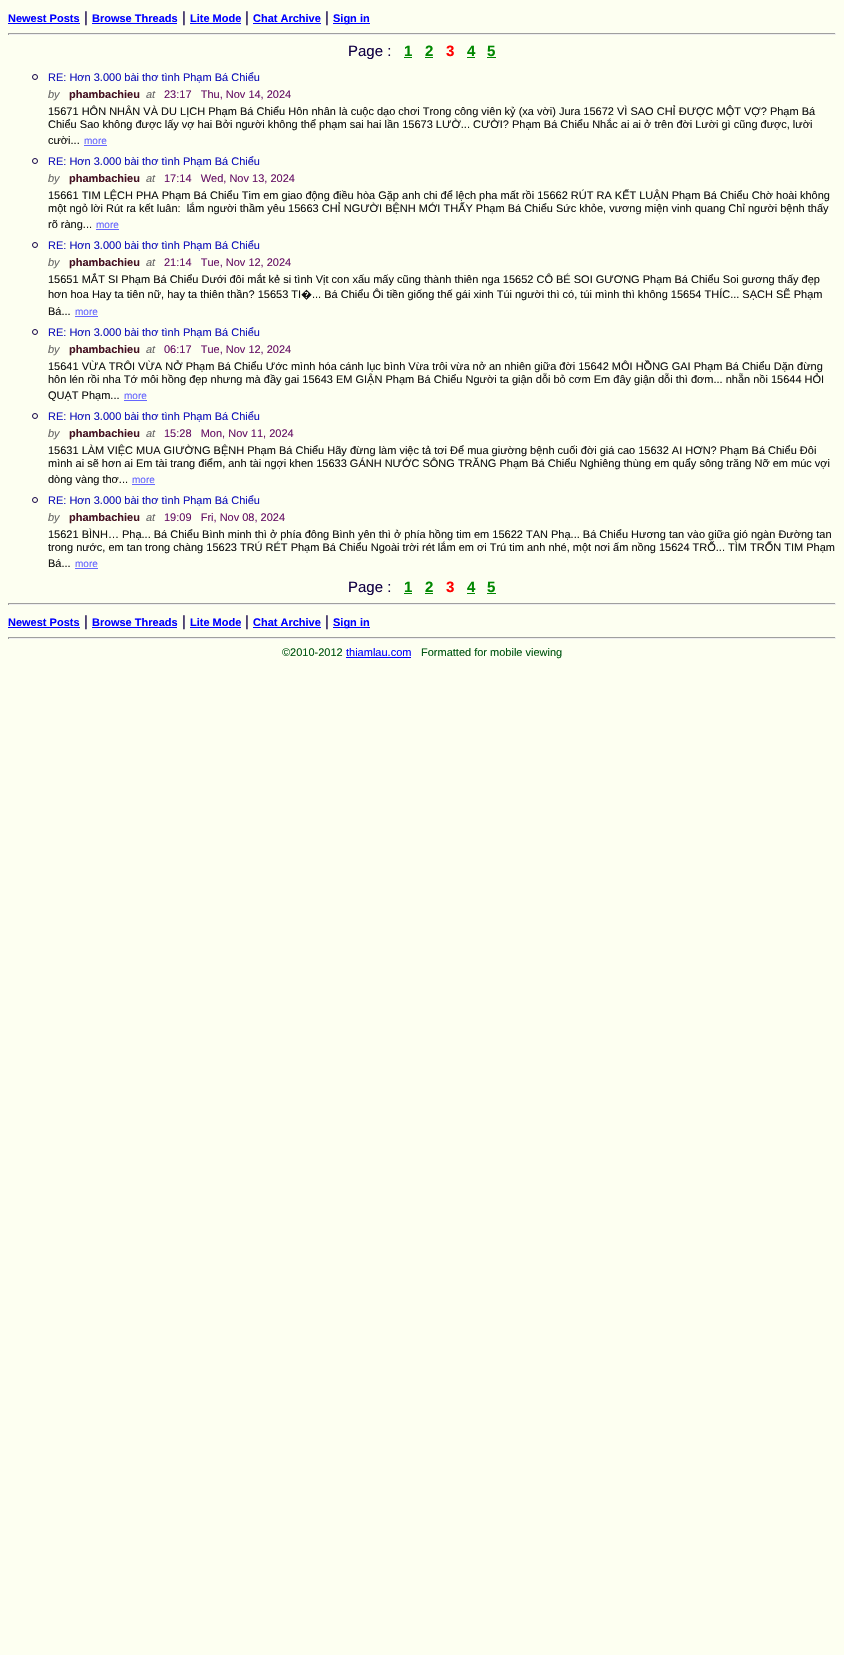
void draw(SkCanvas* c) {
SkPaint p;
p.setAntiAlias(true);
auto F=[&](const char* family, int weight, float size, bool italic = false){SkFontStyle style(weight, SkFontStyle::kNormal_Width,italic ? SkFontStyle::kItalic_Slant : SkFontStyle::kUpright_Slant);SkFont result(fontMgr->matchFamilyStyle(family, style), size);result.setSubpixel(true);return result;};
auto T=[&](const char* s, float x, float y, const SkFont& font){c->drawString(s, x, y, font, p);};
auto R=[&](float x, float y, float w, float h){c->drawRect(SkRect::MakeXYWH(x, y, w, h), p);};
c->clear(0xfffdfff1);
auto f1 = F("Liberation Sans",700,11);
p.setColor(0xff0000ff);
T("Newest Posts",8,22,f1);
R(8,23,72,1);
auto f2 = F("Liberation Sans",400,15);
p.setColor(0xff110044);
T("|",84,22,f2);
p.setColor(0xff0000ff);
T("Browse Threads",92,22,f1);
R(92,23,85,1);
p.setColor(0xff110044);
T("|",182,22,f2);
p.setColor(0xff0000ff);
T("Lite Mode",190,22,f1);
R(190,23,51,1);
p.setColor(0xff110044);
T("|",245,22,f2);
p.setColor(0xff0000ff);
T("Chat Archive",253,22,f1);
R(253,23,68,1);
p.setColor(0xff110044);
T("|",325,22,f2);
p.setColor(0xff0000ff);
R(333,23,37,1);
T("Sign in",333,22,f1);
p.setColor(0xff9f9f9f);
R(8,33,828,1);
p.setColor(0xffeeeeee);
R(835,33,1,2);
R(8,34,828,1);
p.setColor(0xff9f9f9f);
R(8,33,1,2);
p.setColor(0xff110044);
T("Page :",348,56,f2);
auto f3 = F("Liberation Sans",700,15);
p.setColor(0xff008800);
T("1",404,56,f3);
R(404,57,8,1);
T("2",425,56,f3);
R(425,57,8,1);
p.setColor(0xffff0000);
T("3",446,56,f3);
p.setColor(0xff008800);
T("4",467,56,f3);
R(467,57,8,1);
T("5",487,56,f3);
R(487,57,9,1);
p.setStroke(true);
p.setStrokeWidth(1);
p.setColor(0xff110044);
c->drawCircle(35,77,2.5,p);
auto f4 = F("Liberation Sans",400,11);
p.setStroke(false);
p.setColor(0xff1111bb);
T("RE: Hơn 3.000 bài thơ tình Phạm Bá Chiểu",48,81,f4);
auto f5 = F("Liberation Sans",400,11,true);
p.setColor(0xff666666);
T("by",48,98,f5);
p.setColor(0xff441122);
T("phambachieu",69,98,f1);
p.setColor(0xff666666);
T("at",146,98,f5);
p.setColor(0xff661166);
T("23:17   Thu, Nov 14, 2024",164,98,f4);
p.setColor(0xff111111);
T("15671 HÔN NHÂN VÀ DU LỊCH Phạm Bá Chiểu Hôn nhân là cuộc dạo chơi Trong công viên kỷ (xa vời) Jura 15672 VÌ SAO CHỈ ĐƯỢC MỘT VỢ? Phạm Bá",48,115,f4);
T("Chiểu Sao không được lấy vợ hai Bởi người không thể phạm sai hai lần 15673 LƯỜ... CƯỜI? Phạm Bá Chiểu Nhắc ai ai ở trên đời Lười gì cũng được, lười",48,128,f4);
T("cười...",48,144,f4);
auto f6 = F("Liberation Sans",400,10);
p.setColor(0xff6666ff);
T("more",84,144,f6);
R(84,145,23,1);
p.setStroke(true);
p.setColor(0xff110044);
c->drawCircle(35,161,2.5,p);
p.setStroke(false);
p.setColor(0xff1111bb);
T("RE: Hơn 3.000 bài thơ tình Phạm Bá Chiểu",48,165,f4);
p.setColor(0xff666666);
T("by",48,182,f5);
p.setColor(0xff441122);
T("phambachieu",69,182,f1);
p.setColor(0xff666666);
T("at",146,182,f5);
p.setColor(0xff661166);
T("17:14   Wed, Nov 13, 2024",164,182,f4);
p.setColor(0xff111111);
T("15661 TIM LỆCH PHA Phạm Bá Chiểu Tim em giao động điều hòa Gặp anh chi để lệch pha mất rồi 15662 RÚT RA KẾT LUẬN Phạm Bá Chiểu Chờ hoài không",48,199,f4);
T("một ngỏ lời Rút ra kết luân:  lắm người thầm yêu 15663 CHỈ NGƯỜI BỆNH MỚI THẤY Phạm Bá Chiểu Sức khỏe, vương miện vinh quang Chỉ người bệnh thấy",48,212,f4);
T("rõ ràng...",48,228,f4);
p.setColor(0xff6666ff);
T("more",96,228,f6);
R(96,229,23,1);
p.setStroke(true);
p.setColor(0xff110044);
c->drawCircle(35,245,2.5,p);
p.setStroke(false);
p.setColor(0xff1111bb);
T("RE: Hơn 3.000 bài thơ tình Phạm Bá Chiểu",48,249,f4);
p.setColor(0xff666666);
T("by",48,266,f5);
p.setColor(0xff441122);
T("phambachieu",69,266,f1);
p.setColor(0xff666666);
T("at",146,266,f5);
p.setColor(0xff661166);
T("21:14   Tue, Nov 12, 2024",164,266,f4);
p.setColor(0xff111111);
T("15651 MẮT SI Phạm Bá Chiểu Dưới đôi mắt kẻ si tình Vịt con xấu mấy cũng thành thiên nga 15652 CÔ BÉ SOI GƯƠNG Phạm Bá Chiểu Soi gương thấy đẹp",48,283,f4);
T("hơn hoa Hay ta tiên nữ, hay ta thiên thần? 15653 TI",48,298,f4);
auto f7 = F("Noto Sans",500,11);
T("�",301,298,f7);
T("... Bá Chiểu Ôi tiền giống thế gái xinh Túi người thì có, túi mình thì không 15654 THÍC... SẠCH SẼ Phạm",312,298,f4);
T("Bá...",48,315,f4);
p.setColor(0xff6666ff);
T("more",75,315,f6);
R(75,316,23,1);
p.setStroke(true);
p.setColor(0xff110044);
c->drawCircle(35,332,2.5,p);
p.setStroke(false);
p.setColor(0xff1111bb);
T("RE: Hơn 3.000 bài thơ tình Phạm Bá Chiểu",48,336,f4);
p.setColor(0xff666666);
T("by",48,353,f5);
p.setColor(0xff441122);
T("phambachieu",69,353,f1);
p.setColor(0xff666666);
T("at",146,353,f5);
p.setColor(0xff661166);
T("06:17   Tue, Nov 12, 2024",164,353,f4);
p.setColor(0xff111111);
T("15641 VỪA TRÔI VỪA NỞ Phạm Bá Chiểu Ước mình hóa cánh lục bình Vừa trôi vừa nở an nhiên giữa đời 15642 MÔI HỒNG GAI Phạm Bá Chiểu Dặn đừng",48,370,f4);
T("hôn lén rồi nha Tớ môi hồng đẹp nhưng mà đầy gai 15643 EM GIẬN Phạm Bá Chiểu Người ta giận dỗi bỏ cơm Em đây giận dỗi thì đơm... nhẵn nồi 15644 HỎI",48,383,f4);
T("QUẠT Phạm...",48,399,f4);
p.setColor(0xff6666ff);
T("more",124,399,f6);
R(124,400,23,1);
p.setStroke(true);
p.setColor(0xff110044);
c->drawCircle(35,416,2.5,p);
p.setStroke(false);
p.setColor(0xff1111bb);
T("RE: Hơn 3.000 bài thơ tình Phạm Bá Chiểu",48,420,f4);
p.setColor(0xff666666);
T("by",48,437,f5);
p.setColor(0xff441122);
T("phambachieu",69,437,f1);
p.setColor(0xff666666);
T("at",146,437,f5);
p.setColor(0xff661166);
T("15:28   Mon, Nov 11, 2024",164,437,f4);
p.setColor(0xff111111);
T("15631 LÀM VIỆC MUA GIƯỜNG BỆNH Phạm Bá Chiểu Hãy đừng làm việc tả tơi Để mua giường bệnh cuối đời giá cao 15632 AI HƠN? Phạm Bá Chiểu Đôi",48,454,f4);
T("mình ai sẽ hơn ai Em tài trang điểm, anh tài ngợi khen 15633 GÁNH NƯỚC SÔNG TRĂNG Phạm Bá Chiểu Nghiêng thùng em quẩy sông trăng Nỡ em múc vợi",48,467,f4);
T("dòng vàng thơ...",48,483,f4);
p.setColor(0xff6666ff);
T("more",132,483,f6);
R(132,484,23,1);
p.setStroke(true);
p.setColor(0xff110044);
c->drawCircle(35,500,2.5,p);
p.setStroke(false);
p.setColor(0xff1111bb);
T("RE: Hơn 3.000 bài thơ tình Phạm Bá Chiểu",48,504,f4);
p.setColor(0xff666666);
T("by",48,521,f5);
p.setColor(0xff441122);
T("phambachieu",69,521,f1);
p.setColor(0xff666666);
T("at",146,521,f5);
p.setColor(0xff661166);
T("19:09   Fri, Nov 08, 2024",164,521,f4);
p.setColor(0xff111111);
T("15621 BÌNH… Phạ... Bá Chiểu Bình minh thì ở phía đông Bình yên thì ở phía hồng tim em 15622 TAN Phạ... Bá Chiểu Hương tan vào giữa gió ngàn Đường tan",48,538,f4);
T("trong nước, em tan trong chàng 15623 TRÚ RÉT Phạm Bá Chiểu Ngoài trời rét lắm em ơi Trú tim anh nhé, một nơi ấm nồng 15624 TRỐ... TÌM TRỐN TIM Phạm",48,551,f4);
T("Bá...",48,567,f4);
p.setColor(0xff6666ff);
T("more",75,567,f6);
R(75,568,23,1);
p.setColor(0xff110044);
T("Page :",348,592,f2);
p.setColor(0xff008800);
T("1",404,592,f3);
R(404,593,8,1);
T("2",425,592,f3);
R(425,593,8,1);
p.setColor(0xffff0000);
T("3",446,592,f3);
p.setColor(0xff008800);
T("4",467,592,f3);
R(467,593,8,1);
T("5",487,592,f3);
R(487,593,9,1);
p.setColor(0xff9f9f9f);
R(8,603,828,1);
p.setColor(0xffeeeeee);
R(835,603,1,2);
R(8,604,828,1);
p.setColor(0xff9f9f9f);
R(8,603,1,2);
p.setColor(0xff0000ff);
T("Newest Posts",8,626,f1);
R(8,627,72,1);
p.setColor(0xff110044);
T("|",84,626,f2);
p.setColor(0xff0000ff);
T("Browse Threads",92,626,f1);
R(92,627,85,1);
p.setColor(0xff110044);
T("|",182,626,f2);
p.setColor(0xff0000ff);
T("Lite Mode",190,626,f1);
R(190,627,51,1);
p.setColor(0xff110044);
T("|",245,626,f2);
p.setColor(0xff0000ff);
T("Chat Archive",253,626,f1);
R(253,627,68,1);
p.setColor(0xff110044);
T("|",325,626,f2);
p.setColor(0xff0000ff);
R(333,627,37,1);
T("Sign in",333,626,f1);
p.setColor(0xff9f9f9f);
R(8,637,828,1);
p.setColor(0xffeeeeee);
R(835,637,1,2);
R(8,638,828,1);
p.setColor(0xff9f9f9f);
R(8,637,1,2);
p.setColor(0xff005511);
T("©2010-2012",282,656,f4);
p.setColor(0xff0000ff);
T("thiamlau.com",346,656,f4);
R(346,657,65,1);
p.setColor(0xff005511);
T("Formatted for mobile viewing",421,656,f4);
}
